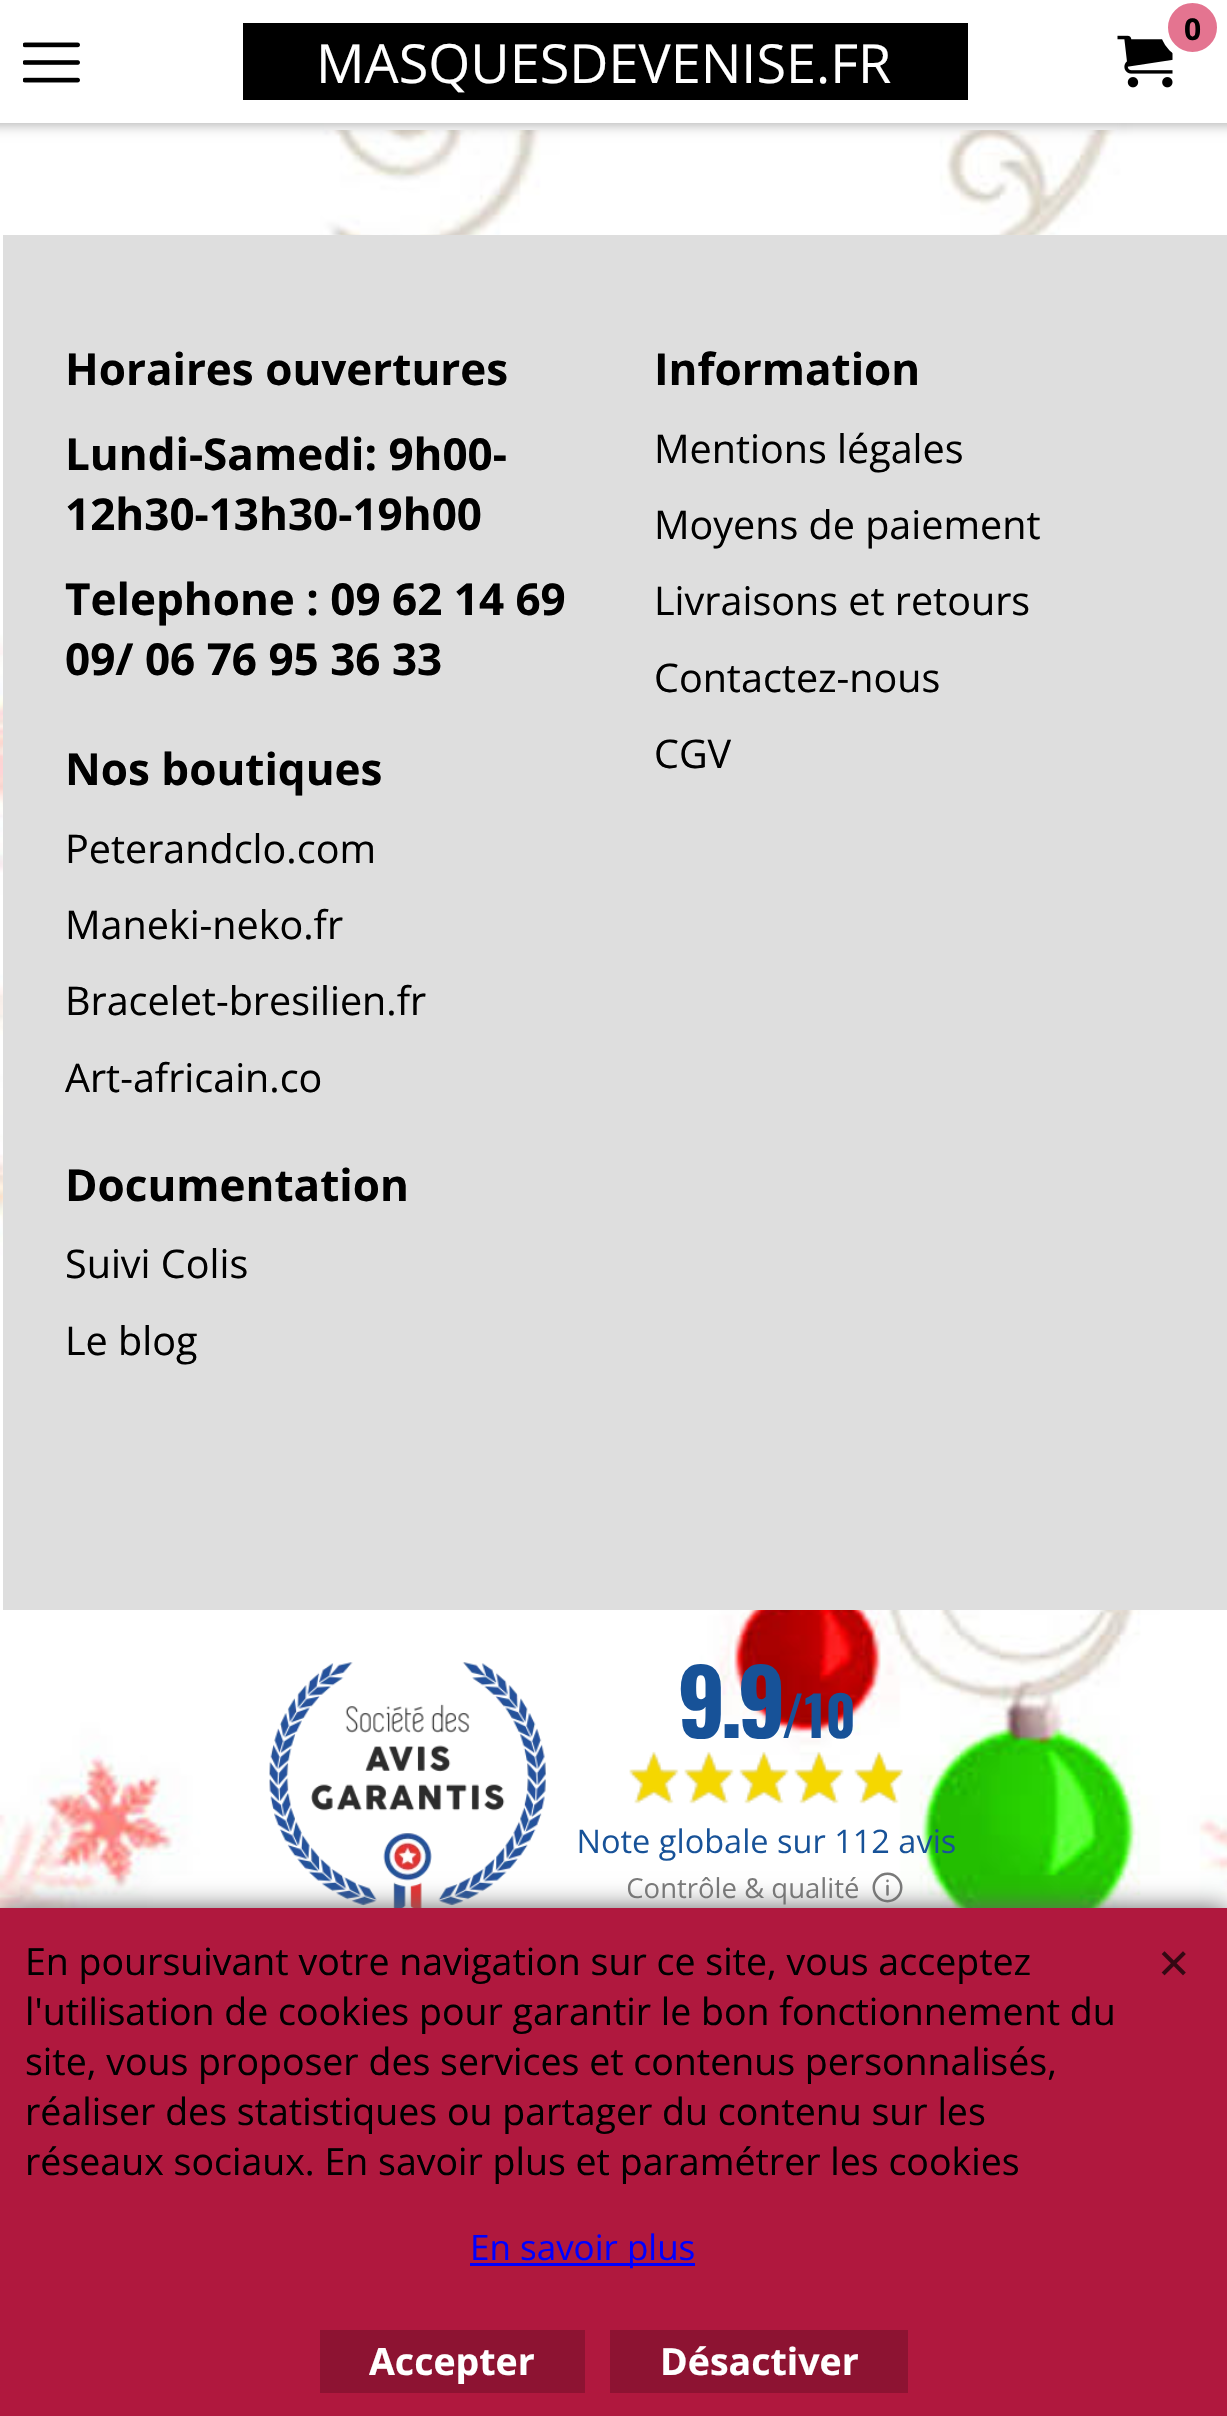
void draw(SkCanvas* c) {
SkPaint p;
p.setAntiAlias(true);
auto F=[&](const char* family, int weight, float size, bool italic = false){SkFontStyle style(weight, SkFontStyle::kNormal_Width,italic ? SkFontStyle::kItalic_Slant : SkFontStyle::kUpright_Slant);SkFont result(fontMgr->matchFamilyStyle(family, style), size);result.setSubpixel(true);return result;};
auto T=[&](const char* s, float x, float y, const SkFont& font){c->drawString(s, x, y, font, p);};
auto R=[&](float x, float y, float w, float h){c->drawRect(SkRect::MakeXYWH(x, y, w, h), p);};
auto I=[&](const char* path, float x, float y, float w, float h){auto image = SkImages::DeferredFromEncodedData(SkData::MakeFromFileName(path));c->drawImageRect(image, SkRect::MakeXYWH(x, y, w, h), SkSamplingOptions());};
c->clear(0xffffffff);
I("1.png",0,123,1227,1785);
p.setColor(0xffffffff);
R(324,123,793,7);
p.setColor(0x4d000000);
p.setMaskFilter(SkMaskFilter::MakeBlur(kNormal_SkBlurStyle, 6));
c->drawRect(SkRect::MakeXYWH(-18,-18,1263,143),p);
p.setMaskFilter(nullptr);
p.setColor(0xffffffff);
R(0,0,1227,123);
I("2.png",1117,35,56,53);
p.setColor(0xffe47490);
c->drawCircle(1192.5,27.5,28.5,p);
p.setStroke(true);
p.setStrokeWidth(8);
p.setColor(0xffffffff);
c->drawCircle(1192.5,27.5,28.5,p);
auto f1 = F("Open Sans",700,30);
p.setStroke(false);
p.setColor(0xff000000);
T("0",1184,40,f1);
I("3.png",23,42,57,41);
R(243,23,725,77);
auto f2 = F("Open Sans",400,54);
p.setColor(0xffffffff);
T("MASQUESDEVENISE.FR",316,83,f2);
p.setColor(0xffdedede);
R(3,235,1224,1375);
auto f3 = F("Open Sans",700,44);
p.setColor(0xff000000);
T("Horaires ouvertures",65,385,f3);
T("Lundi-Samedi: 9h00-",65,470,f3);
T("12h30-13h30-19h00",65,530,f3);
T("Telephone : 09 62 14 69",65,615,f3);
T("09/ 06 76 95 36 33",65,675,f3);
T("Information",654,385,f3);
auto f4 = F("Open Sans",400,39.5);
T("Mentions légales",654,463,f4);
T("Moyens de paiement",654,539,f4);
T("Livraisons et retours",654,615,f4);
T("Contactez-nous",654,692,f4);
T("CGV",654,768,f4);
T("Nos boutiques",65,785,f3);
T("Peterandclo.com",65,863,f4);
T("Maneki-neko.fr",65,939,f4);
T("Bracelet-bresilien.fr",65,1015,f4);
T("Art-africain.co",65,1092,f4);
T("Documentation",65,1201,f3);
T("Suivi Colis",65,1278,f4);
T("Le blog",65,1355,f4);
I("4.png",269,1662,686,246);
p.setColor(0xff666666);
p.setMaskFilter(SkMaskFilter::MakeBlur(kNormal_SkBlurStyle, 12.5));
c->drawRect(SkRect::MakeXYWH(0,1908,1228,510),p);
p.setMaskFilter(nullptr);
p.setColor(0xffb0183e);
R(0,1908,1227,508);
auto f5 = F("Open Sans",400,37.5);
p.setColor(0xff000000);
T("En poursuivant votre navigation sur ce site, vous acceptez",25,1975,f5);
T("l'utilisation de cookies pour garantir le bon fonctionnement du",25,2025,f5);
T("site, vous proposer des services et contenus personnalisés,",25,2075,f5);
T("réaliser des statistiques ou partager du contenu sur les",25,2125,f5);
T("réseaux sociaux. En savoir plus et paramétrer les cookies",25,2175,f5);
p.setColor(0xff0000ff);
R(470,2263,225,3);
auto f6 = F("Open Sans",400,35);
T("En savoir plus",470,2260,f6);
I("5.png",1161,1951,25,25);
p.setColor(0xff8d1332);
R(320,2330,265,63);
auto f7 = F("Open Sans",700,37.5);
p.setColor(0xffffffff);
T("Accepter",369,2375,f7);
p.setColor(0xff8d1332);
R(610,2330,298,63);
p.setColor(0xffffffff);
T("Désactiver",660,2375,f7);
}
